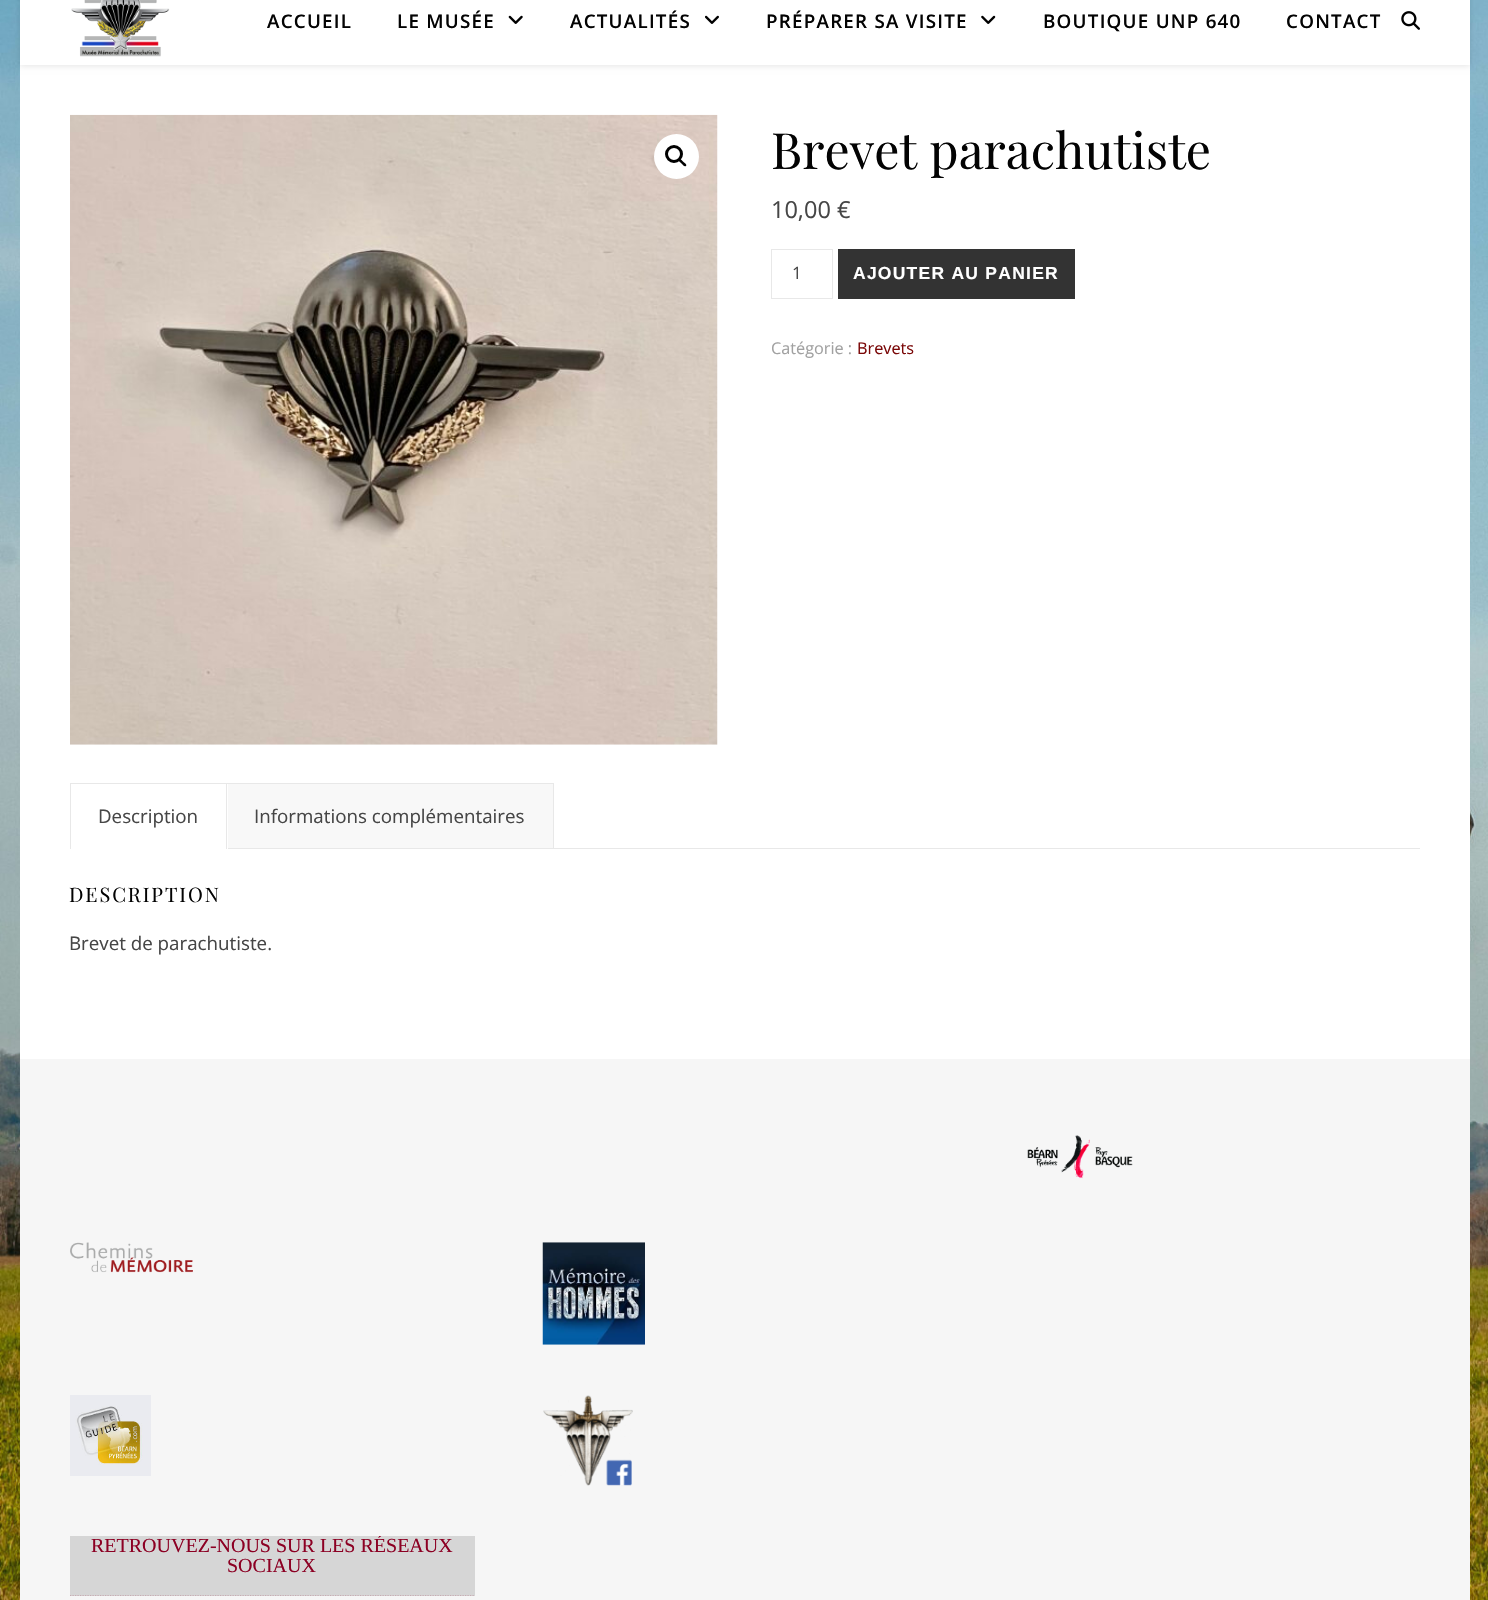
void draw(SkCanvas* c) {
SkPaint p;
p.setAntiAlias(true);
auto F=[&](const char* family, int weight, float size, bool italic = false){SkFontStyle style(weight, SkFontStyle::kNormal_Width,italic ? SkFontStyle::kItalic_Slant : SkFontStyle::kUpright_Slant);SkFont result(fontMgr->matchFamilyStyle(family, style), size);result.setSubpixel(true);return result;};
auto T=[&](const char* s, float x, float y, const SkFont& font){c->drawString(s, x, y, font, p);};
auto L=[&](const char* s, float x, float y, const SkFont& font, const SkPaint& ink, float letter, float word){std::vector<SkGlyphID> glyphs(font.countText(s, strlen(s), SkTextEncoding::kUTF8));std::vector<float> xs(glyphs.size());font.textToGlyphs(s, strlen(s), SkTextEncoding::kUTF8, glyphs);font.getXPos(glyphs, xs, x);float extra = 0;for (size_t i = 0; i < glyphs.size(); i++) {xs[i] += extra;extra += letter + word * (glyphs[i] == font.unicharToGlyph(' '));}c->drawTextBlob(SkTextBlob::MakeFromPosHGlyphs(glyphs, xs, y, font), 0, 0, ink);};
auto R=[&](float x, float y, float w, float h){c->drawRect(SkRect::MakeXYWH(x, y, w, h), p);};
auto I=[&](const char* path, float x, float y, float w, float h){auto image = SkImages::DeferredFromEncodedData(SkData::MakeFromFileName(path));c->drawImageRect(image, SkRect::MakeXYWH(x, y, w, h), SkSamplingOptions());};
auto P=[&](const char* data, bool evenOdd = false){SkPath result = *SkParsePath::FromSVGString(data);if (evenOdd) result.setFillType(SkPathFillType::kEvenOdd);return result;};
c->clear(0xffffffff);
I("1.png",0,0,1488,1600);
p.setColor(0xffffffff);
R(20,65,1450,994);
p.setColor(0x1a000000);
p.setMaskFilter(SkMaskFilter::MakeBlur(kNormal_SkBlurStyle, 3));
c->drawRect(SkRect::MakeXYWH(20,-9,1450,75),p);
p.setMaskFilter(nullptr);
p.setColor(0xffffffff);
R(20,0,1450,65);
I("2.png",71,0,99,57);
auto f1 = F("Open Sans",600,18.75);
p.setColor(0xff030303);
L("ACCUEIL",267,28,f1,p,1.25,0);
L("LE MUSÉE",397,28,f1,p,1.25,0);
I("3.png",508,15,15,9);
L("ACTUALITÉS",570,28,f1,p,1.25,0);
I("4.png",705,15,14,9);
L("PRÉPARER SA VISITE",766,28,f1,p,1.25,0);
I("5.png",981,15,15,9);
L("BOUTIQUE UNP 640",1043,28,f1,p,1.25,0);
L("CONTACT",1286,28,f1,p,1.25,0);
I("6.png",1401,11,19,19);
I("7.png",70,114,648,631);
p.setColor(0xffffffff);
c->drawCircle(676.5,156.5,22.5,p);
p.setStroke(true);
p.setStrokeWidth(3);
p.setColor(0xff000000);
c->drawCircle(674,154,7.5,p);
p.setStroke(false);
c->drawPath(P("M679 159c1-1.5 3.5 2 4 2.5c1 1 4.5 3 3 4.5c-1.5 1.5-4-2-4.5-2.5c-1-1-4-3-2.5-4.5z"),p);
auto f2 = F("Playfair Display",400,50);
p.setColor(0xff030303);
T("Brevet parachutiste",771,169,f2);
auto f3 = F("Open Sans",400,23.5);
p.setColor(0xff464646);
T("10,00 €",771,218,f3);
p.setStroke(true);
p.setStrokeWidth(1);
p.setColor(0xffe8e8e8);
c->drawRect(SkRect::MakeXYWH(771.5,249.5,61,49),p);
auto f4 = F("Open Sans",400,17);
p.setStroke(false);
p.setColor(0xff464646);
T("1",792,279,f4);
p.setColor(0xff333333);
R(838,249,237,50);
auto f5 = F("Liberation Sans",700,17.5);
p.setColor(0xffffffff);
L("AJOUTER AU PANIER",853,279,f5,p,1.25,0);
auto f6 = F("Open Sans",400,16.25);
p.setColor(0xffa1a1a1);
T("Catégorie :",771,354,f6);
p.setColor(0xff7a0707);
T("Brevets",857,354,f6);
p.setColor(0xffe8e8e8);
R(70,783,484,1);
R(226,783,1,66);
R(70,783,1,66);
auto f7 = F("Open Sans",400,18.75);
p.setColor(0xff464646);
T("Description",98,823,f7);
p.setColor(0xfff8f8f8);
R(228,784,325,64);
p.setColor(0xffe8e8e8);
R(553,783,1,66);
p.setColor(0xff464646);
T("Informations complémentaires",254,823,f7);
p.setColor(0xffe8e8e8);
R(228,848,1192,1);
auto f8 = F("Playfair Display",400,20);
p.setColor(0xff030303);
L("DESCRIPTION",69,902,f8,p,1.9,0);
p.setColor(0xff464646);
T("Brevet de parachutiste.",69,950,f7);
p.setColor(0xfff6f6f6);
R(20,1059,1450,541);
I("8.png",1027,1135,106,44);
I("9.png",70,1242,123,31);
I("10.png",542,1242,103,103);
I("11.png",70,1395,81,81);
I("12.png",543,1395,90,91);
p.setColor(0xffd6d6d6);
R(70,1536,405,60);
p.setStroke(true);
p.setStrokeWidth(1.2);
p.setColor(0xffc7abb2);
p.setPathEffect(SkDashPathEffect::Make({{1.25f,1.25f}}, 0));
c->drawPath(P("M70 1595.5h405"),p);
p.setPathEffect(nullptr);
c->save();
c->clipRect(SkRect::MakeXYWH(70,1536,405,59));
auto f9 = F("Liberation Serif",400,20);
p.setStroke(false);
p.setColor(0xff8c0023);
T("RETROUVEZ-NOUS SUR LES RÉSEAUX",91,1552,f9);
c->restore();
T("SOCIAUX",227,1572,f9);
}
